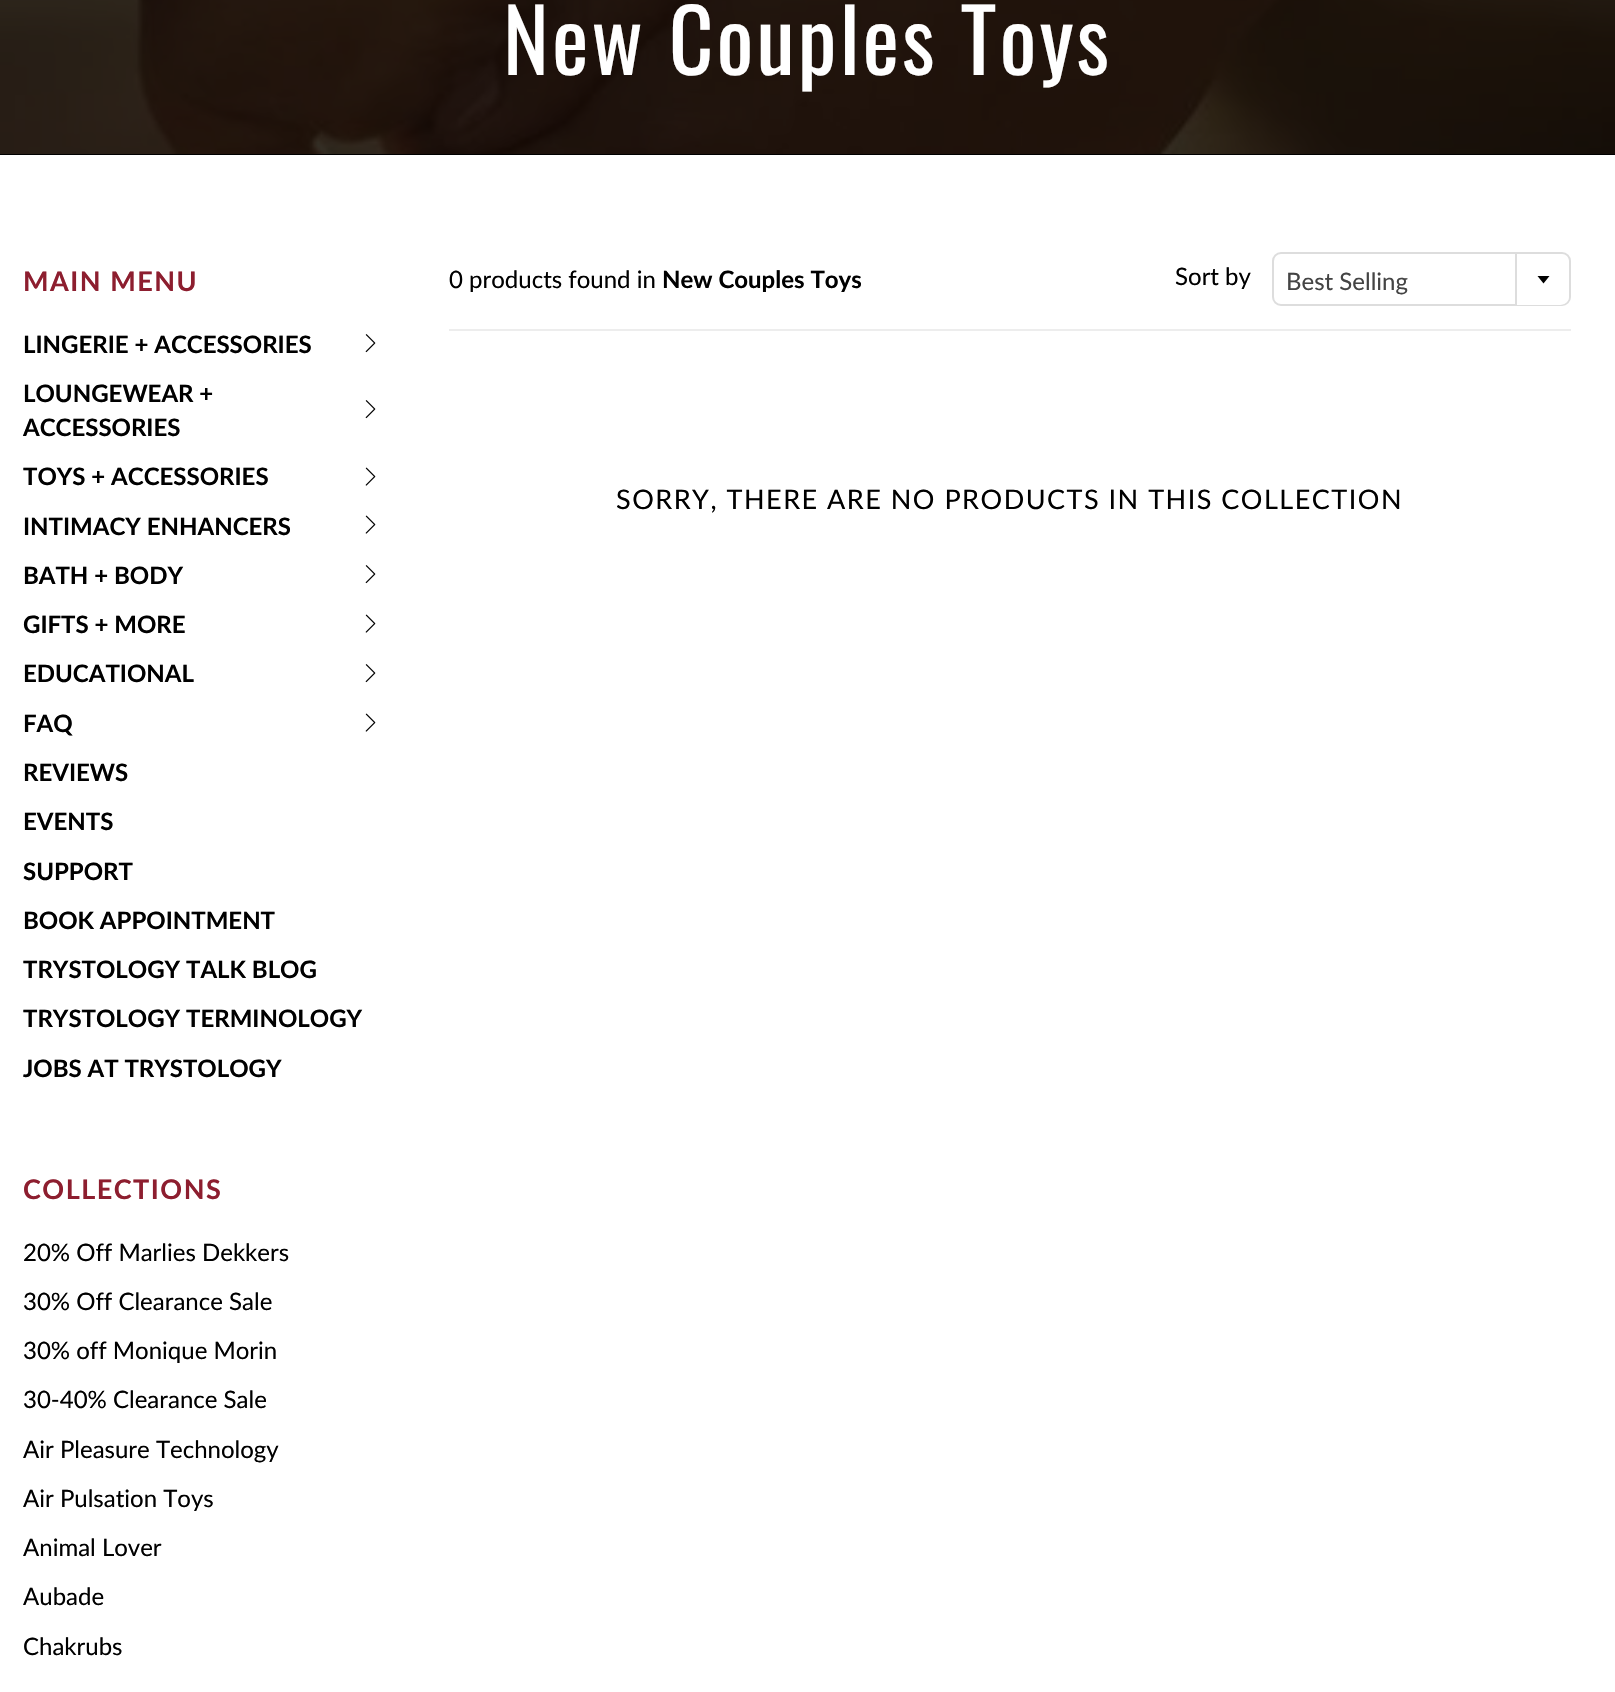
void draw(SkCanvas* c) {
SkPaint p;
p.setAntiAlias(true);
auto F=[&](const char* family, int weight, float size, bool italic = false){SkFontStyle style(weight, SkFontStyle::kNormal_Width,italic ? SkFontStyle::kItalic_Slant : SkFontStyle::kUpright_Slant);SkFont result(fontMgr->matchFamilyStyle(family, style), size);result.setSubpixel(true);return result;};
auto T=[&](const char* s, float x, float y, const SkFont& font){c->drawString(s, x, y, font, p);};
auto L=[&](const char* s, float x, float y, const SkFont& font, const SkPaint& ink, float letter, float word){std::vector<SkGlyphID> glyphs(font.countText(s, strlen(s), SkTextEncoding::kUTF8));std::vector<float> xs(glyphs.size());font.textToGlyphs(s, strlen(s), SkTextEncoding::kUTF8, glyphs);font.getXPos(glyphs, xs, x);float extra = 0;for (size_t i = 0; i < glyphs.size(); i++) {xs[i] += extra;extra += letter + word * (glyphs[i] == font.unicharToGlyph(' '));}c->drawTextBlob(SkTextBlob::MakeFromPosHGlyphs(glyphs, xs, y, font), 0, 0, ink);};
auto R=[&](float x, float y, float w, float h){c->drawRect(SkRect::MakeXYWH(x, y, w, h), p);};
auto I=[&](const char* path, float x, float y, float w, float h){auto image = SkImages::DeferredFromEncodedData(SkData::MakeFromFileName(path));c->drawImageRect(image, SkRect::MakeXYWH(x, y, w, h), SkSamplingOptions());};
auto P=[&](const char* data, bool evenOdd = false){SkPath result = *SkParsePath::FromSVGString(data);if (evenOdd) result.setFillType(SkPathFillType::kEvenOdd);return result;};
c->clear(0xffffffff);
p.setColor(0xff000000);
R(0,154,1615,1);
I("1.png",0,0,1615,154);
auto f1 = F("Oswald",400,87);
p.setColor(0xffffffff);
L("New Couples Toys",503,75,f1,p,3,0);
auto f2 = F("Lato",700,27);
p.setColor(0xff8d1e2f);
L("MAIN MENU",23,291,f2,p,1.5,0);
auto f3 = F("Lato",700,24);
p.setColor(0xff000000);
T("LINGERIE + ACCESSORIES",23,353,f3);
I("2.png",365,334,11,19);
T("LOUNGEWEAR +",23,402,f3);
I("2.png",365,400,11,19);
T("ACCESSORIES",23,436,f3);
T("TOYS + ACCESSORIES",23,485,f3);
I("3.png",365,467,11,19);
T("INTIMACY ENHANCERS",23,535,f3);
I("3.png",365,515,11,19);
T("BATH + BODY",23,584,f3);
I("2.png",365,565,11,19);
T("GIFTS + MORE",23,633,f3);
I("3.png",365,614,11,19);
T("EDUCATIONAL",23,682,f3);
I("2.png",365,664,11,19);
T("FAQ",23,732,f3);
I("3.png",365,713,11,19);
T("REVIEWS",23,781,f3);
T("EVENTS",23,830,f3);
T("SUPPORT",23,880,f3);
T("BOOK APPOINTMENT",23,929,f3);
T("TRYSTOLOGY TALK BLOG",23,978,f3);
T("TRYSTOLOGY TERMINOLOGY",23,1027,f3);
T("JOBS AT TRYSTOLOGY",23,1077,f3);
p.setColor(0xff8d1e2f);
L("COLLECTIONS",23,1199,f2,p,1.5,0);
auto f4 = F("Lato",400,24);
p.setColor(0xff000000);
T("20% Off Marlies Dekkers",23,1261,f4);
T("30% Off Clearance Sale",23,1310,f4);
T("30% off Monique Morin",23,1359,f4);
T("30-40% Clearance Sale",23,1408,f4);
T("Air Pleasure Technology",23,1458,f4);
T("Air Pulsation Toys",23,1507,f4);
T("Animal Lover",23,1556,f4);
T("Aubade",23,1605,f4);
T("Chakrubs",23,1655,f4);
p.setColor(0xffededed);
R(449,329,1122,2);
p.setColor(0xff000000);
T("0 products found in",449,288,f4);
T("New Couples Toys",662,288,f3);
T("Sort by",1175,285,f4);
p.setStroke(true);
p.setStrokeWidth(2);
p.setColor(0xffdddddd);
c->drawRoundRect(SkRect::MakeXYWH(1273,253,297,52),8,8,p);
p.setStroke(false);
p.setColor(0xff444444);
T("Best Selling",1286,290,f4);
p.setColor(0xffffffff);
c->drawPath(P("M1515 254h45c5 0 9 4 9 9v33c0 5-4 9-9 9h-45z"),p);
p.setColor(0xffdddddd);
R(1515,254,2,51);
p.setColor(0xff000000);
c->drawPath(P("M1537.5 276h12l-6 7.5z"),p);
auto f5 = F("Lato",400,27);
L("SORRY, THERE ARE NO PRODUCTS IN THIS COLLECTION",616,509,f5,p,1.5,0);
}
